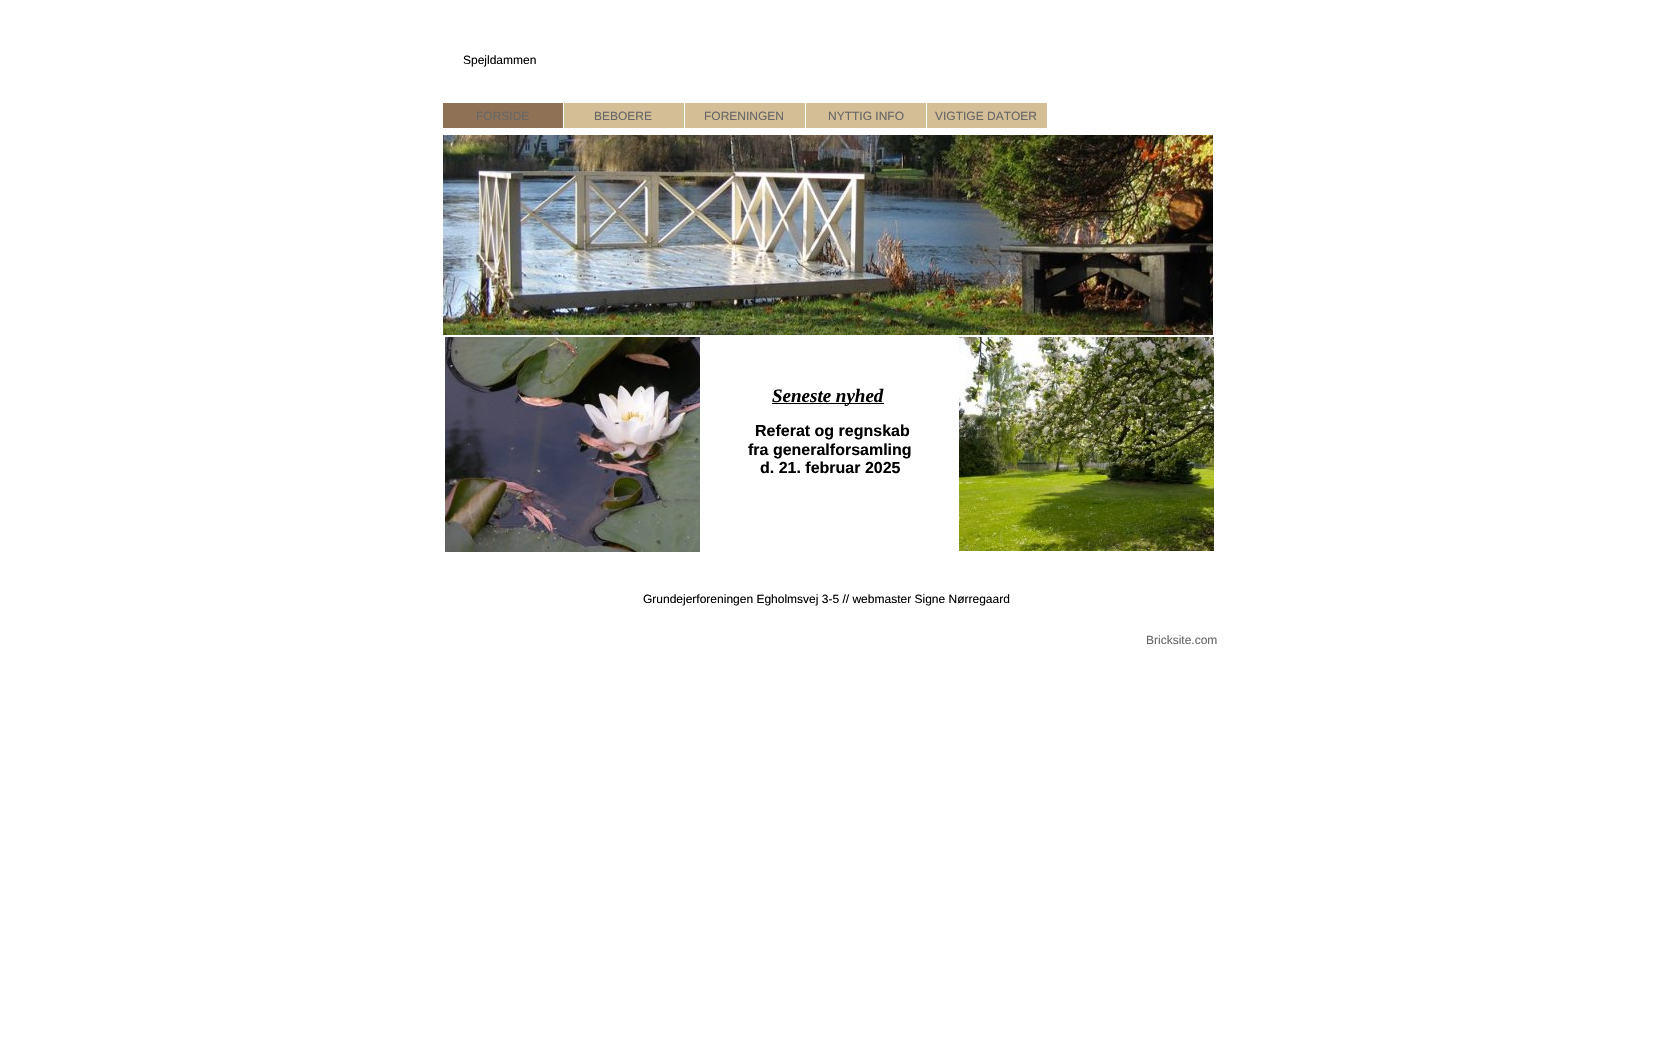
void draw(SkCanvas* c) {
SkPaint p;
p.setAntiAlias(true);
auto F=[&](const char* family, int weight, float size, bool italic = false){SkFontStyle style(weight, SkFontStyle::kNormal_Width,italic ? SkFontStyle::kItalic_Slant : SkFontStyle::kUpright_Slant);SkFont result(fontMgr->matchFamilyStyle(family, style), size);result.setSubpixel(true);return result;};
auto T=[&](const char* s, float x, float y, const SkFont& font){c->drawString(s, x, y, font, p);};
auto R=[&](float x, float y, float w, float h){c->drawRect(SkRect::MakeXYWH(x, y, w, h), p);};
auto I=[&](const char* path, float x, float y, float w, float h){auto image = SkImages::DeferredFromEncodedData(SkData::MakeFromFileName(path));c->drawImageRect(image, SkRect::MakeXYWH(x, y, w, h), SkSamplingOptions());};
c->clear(0xffffffff);
auto f1 = F("Liberation Sans",400,12);
p.setColor(0xff000000);
T("Spejldammen",463,64,f1);
p.setColor(0xffd3be96);
R(564,103,483,25);
p.setColor(0xff8f7156);
R(443,103,120,25);
p.setColor(0xff666666);
T("FORSIDE",476,120,f1);
T("BEBOERE",594,120,f1);
p.setColor(0xffffffff);
R(684,103,1,25);
p.setColor(0xff666666);
T("FORENINGEN",704,120,f1);
p.setColor(0xffffffff);
R(805,103,1,25);
p.setColor(0xff666666);
T("NYTTIG INFO",828,120,f1);
p.setColor(0xffffffff);
R(926,103,1,25);
p.setColor(0xff666666);
T("VIGTIGE DATOER",935,120,f1);
I("1.png",443,135,770,200);
I("2.png",445,337,255,215);
p.setColor(0xff000000);
R(772,403,112,1);
auto f2 = F("Liberation Serif",700,19,true);
T("Seneste nyhed",772,402,f2);
auto f3 = F("Liberation Sans",700,16);
T("Referat og regnskab",755,436,f3);
T("fra generalforsamling",748,455,f3);
T("d. 21. februar 2025",760,473,f3);
I("3.png",959,337,255,214);
T("Grundejerforeningen Egholmsvej 3-5 // webmaster Signe Nørregaard",643,603,f1);
p.setColor(0xff666666);
T("Bricksite.com",1146,644,f1);
}
